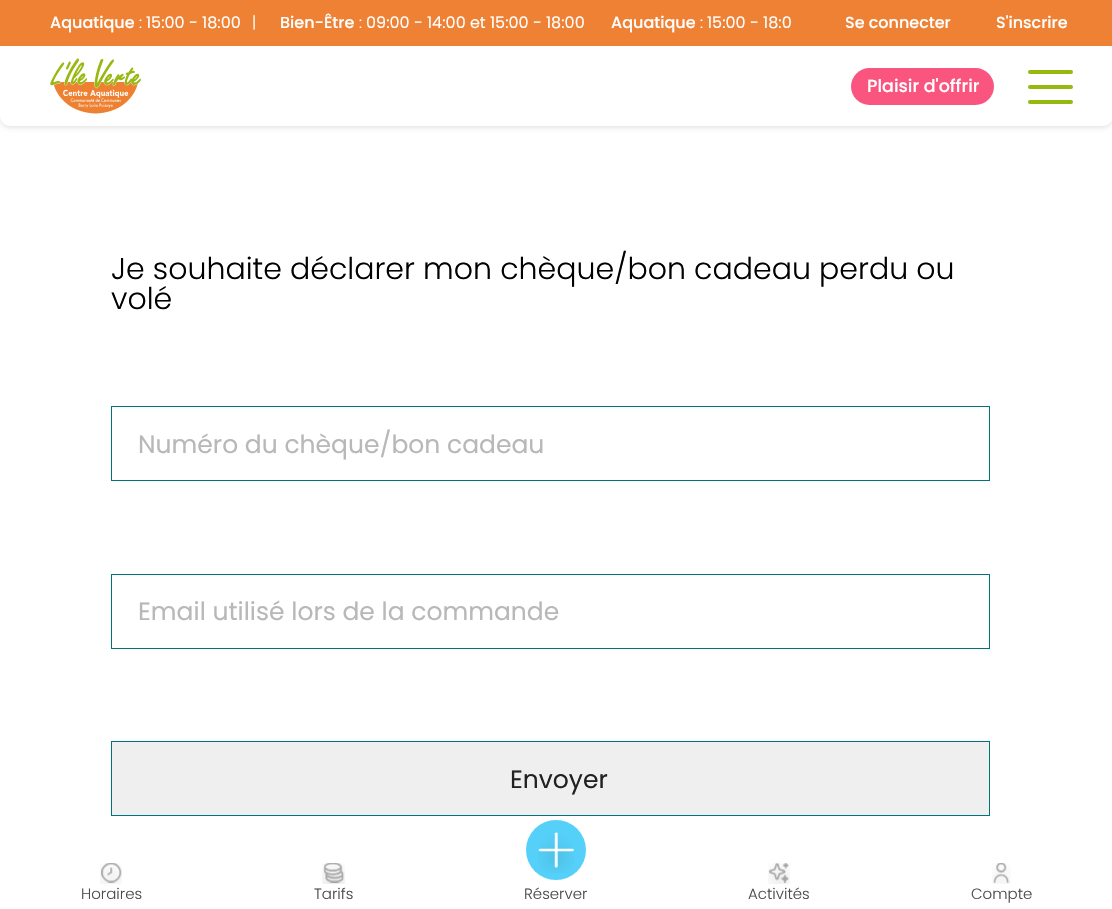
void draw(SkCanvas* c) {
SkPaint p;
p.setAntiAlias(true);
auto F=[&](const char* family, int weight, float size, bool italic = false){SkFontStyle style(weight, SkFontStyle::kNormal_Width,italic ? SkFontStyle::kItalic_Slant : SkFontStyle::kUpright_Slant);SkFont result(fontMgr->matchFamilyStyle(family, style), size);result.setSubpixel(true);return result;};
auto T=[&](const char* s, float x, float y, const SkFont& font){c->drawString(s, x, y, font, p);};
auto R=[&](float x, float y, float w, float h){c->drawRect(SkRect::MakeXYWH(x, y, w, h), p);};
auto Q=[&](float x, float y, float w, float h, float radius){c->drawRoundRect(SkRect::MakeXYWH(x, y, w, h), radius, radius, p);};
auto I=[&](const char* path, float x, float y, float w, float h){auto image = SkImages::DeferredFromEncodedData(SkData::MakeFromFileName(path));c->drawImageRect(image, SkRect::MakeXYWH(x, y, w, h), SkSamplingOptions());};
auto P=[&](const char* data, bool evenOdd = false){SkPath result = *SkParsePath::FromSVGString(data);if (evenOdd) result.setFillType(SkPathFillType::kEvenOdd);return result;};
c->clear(0xffffffff);
p.setColor(0x1a000000);
p.setMaskFilter(SkMaskFilter::MakeBlur(kNormal_SkBlurStyle, 2));
c->drawRoundRect(SkRect::MakeXYWH(0,48,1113,80),10,10,p);
p.setMaskFilter(nullptr);
p.setColor(0xffee8133);
R(0,0,1112,46);
auto f1 = F("Poppins",500,16);
p.setColor(0xffffffff);
T("Aquatique",50,28,f1);
auto f2 = F("Poppins",300,16);
T(":",139,28,f2);
auto f3 = F("Poppins",400,16);
T("15:00 - 18:00",146,28,f3);
T("|",252,28,f2);
T("Bien-Être",280,28,f1);
T(":",359,28,f2);
T("09:00 - 14:00 et 15:00 - 18:00",366,28,f3);
T("Aquatique",611,28,f1);
T(":",700,28,f2);
T("15:00 - 18:0",707,28,f3);
T("Se connecter",845,28,f1);
T("S'inscrire",996,28,f1);
c->drawPath(P("M0 46h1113v70c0 5.5-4.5 10-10 10h-1093c-5.5 0-10-4.5-10-10z"),p);
I("1.png",50,58,91,56);
p.setColor(0xfff9557f);
Q(851,68,143,37,18.5);
auto f4 = F("Poppins",500,17.5);
p.setColor(0xffffffff);
T("Plaisir d'offrir",867,92,f4);
p.setColor(0xff96b910);
Q(1028,70,45,4,2);
Q(1028,85,45,4,2);
Q(1028,100,45,4,2);
auto f5 = F("Poppins",300,30);
p.setColor(0xff000000);
T("Je souhaite déclarer mon chèque/bon cadeau perdu ou",111,279,f5);
T("volé",111,309,f5);
p.setStroke(true);
p.setStrokeWidth(1);
p.setColor(0xff02727d);
c->drawRect(SkRect::MakeXYWH(111.5,406.5,878,74),p);
auto f6 = F("Poppins",400,25);
p.setStroke(false);
p.setColor(0xffb8b8b8);
T("Numéro du chèque/bon cadeau",138,453,f6);
p.setStroke(true);
p.setColor(0xff02727d);
c->drawRect(SkRect::MakeXYWH(111.5,574.5,878,74),p);
p.setStroke(false);
p.setColor(0xffb8b8b8);
T("Email utilisé lors de la commande",138,620,f6);
p.setColor(0xffefefef);
c->drawRect(SkRect::MakeXYWH(111.5,741.5,878,74),p);
p.setStroke(true);
p.setColor(0xff02727d);
c->drawRect(SkRect::MakeXYWH(111.5,741.5,878,74),p);
p.setStroke(false);
p.setColor(0xff222222);
T("Envoyer",510,788,f6);
I("2.png",100,863,22,21);
auto f7 = F("Poppins",300,15);
p.setColor(0xff4c4c4c);
T("Horaires",81,899,f7);
I("3.png",322,863,23,21);
T("Tarifs",314,899,f7);
p.setColor(0xff55d1f9);
c->drawCircle(556,850,30,p);
I("4.png",538,832,36,41);
p.setColor(0xff4c4c4c);
T("Réserver",524,899,f7);
I("5.png",768,863,22,21);
T("Activités",748,899,f7);
I("6.png",992,863,19,21);
T("Compte",971,899,f7);
}
